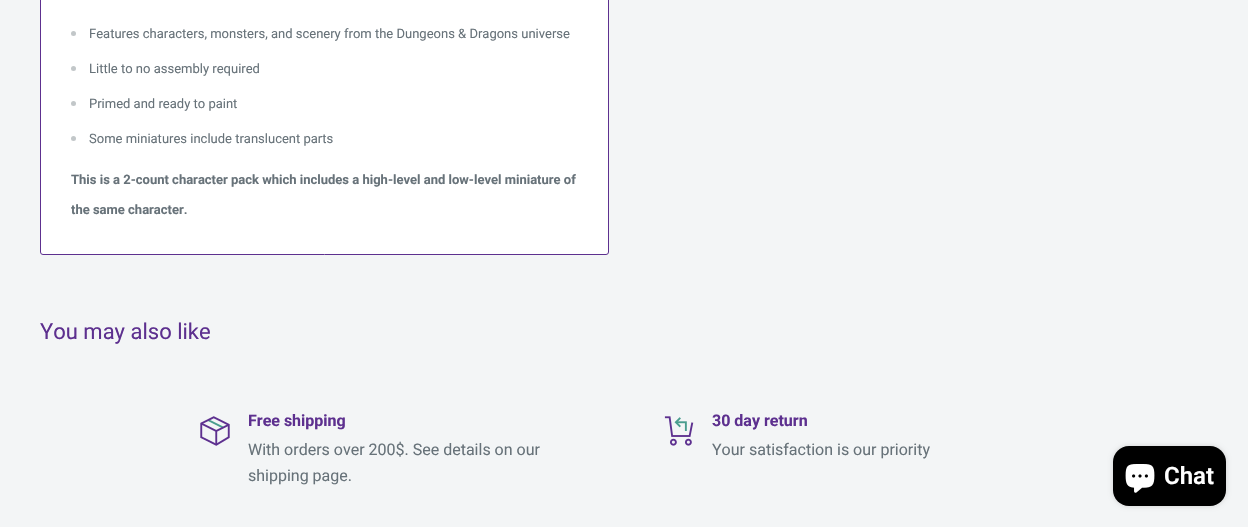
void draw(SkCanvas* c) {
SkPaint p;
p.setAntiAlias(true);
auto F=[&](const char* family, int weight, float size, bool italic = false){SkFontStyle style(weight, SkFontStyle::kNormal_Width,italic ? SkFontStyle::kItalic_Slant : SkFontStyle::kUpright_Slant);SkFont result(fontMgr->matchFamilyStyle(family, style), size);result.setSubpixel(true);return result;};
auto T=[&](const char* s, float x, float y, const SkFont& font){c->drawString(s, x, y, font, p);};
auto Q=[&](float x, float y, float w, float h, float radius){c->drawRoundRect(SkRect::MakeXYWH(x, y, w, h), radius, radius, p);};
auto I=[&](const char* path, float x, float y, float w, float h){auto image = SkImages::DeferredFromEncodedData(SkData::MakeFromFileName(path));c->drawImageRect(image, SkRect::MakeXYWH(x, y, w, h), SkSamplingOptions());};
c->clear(0xfff3f5f6);
p.setColor(0xffffffff);
c->drawRoundRect(SkRect::MakeXYWH(40.5,-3.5,568,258),2.5,2.5,p);
p.setStroke(true);
p.setStrokeWidth(1);
p.setColor(0xff5d308f);
c->drawRoundRect(SkRect::MakeXYWH(40.5,-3.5,568,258),2.5,2.5,p);
p.setStroke(false);
p.setColor(0xffc2c7c9);
c->drawCircle(73.5,33.5,2.5,p);
auto f1 = F("Roboto",400,13);
p.setColor(0xff677279);
T("Features characters, monsters, and scenery from the Dungeons & Dragons universe",89,38,f1);
p.setColor(0xffc2c7c9);
c->drawCircle(73.5,68.5,2.5,p);
p.setColor(0xff677279);
T("Little to no assembly required",89,73,f1);
p.setColor(0xffc2c7c9);
c->drawCircle(73.5,103.5,2.5,p);
p.setColor(0xff677279);
T("Primed and ready to paint",89,108,f1);
p.setColor(0xffc2c7c9);
c->drawCircle(73.5,138.5,2.5,p);
p.setColor(0xff677279);
T("Some miniatures include translucent parts",89,143,f1);
auto f2 = F("Roboto",700,13);
T("This is a 2-count character pack which includes a high-level and low-level miniature of",71,184,f2);
T("the same character.",71,214,f2);
auto f3 = F("Roboto",400,22);
p.setColor(0xff5d308f);
T("You may also like",40,339,f3);
I("1.png",200,416,30,30);
auto f4 = F("Roboto",700,16);
T("Free shipping",248,426,f4);
auto f5 = F("Roboto",400,16);
p.setColor(0xff677279);
T("With orders over 200$. See details on our",248,455,f5);
T("shipping page.",248,481,f5);
I("2.png",664,416,30,30);
p.setColor(0xff5d308f);
T("30 day return",712,426,f4);
p.setColor(0xff677279);
T("Your satisfaction is our priority",712,455,f5);
p.setColor(0x26000000);
p.setMaskFilter(SkMaskFilter::MakeBlur(kNormal_SkBlurStyle, 2.5));
c->drawRoundRect(SkRect::MakeXYWH(1113,446,113,60),16,16,p);
p.setMaskFilter(nullptr);
p.setColor(0xff000000);
Q(1113,446,113,60,16);
I("3.png",1125,464,30,29);
auto f6 = F("Roboto",600,24);
p.setColor(0xffffffff);
T("Chat",1164,484,f6);
}
